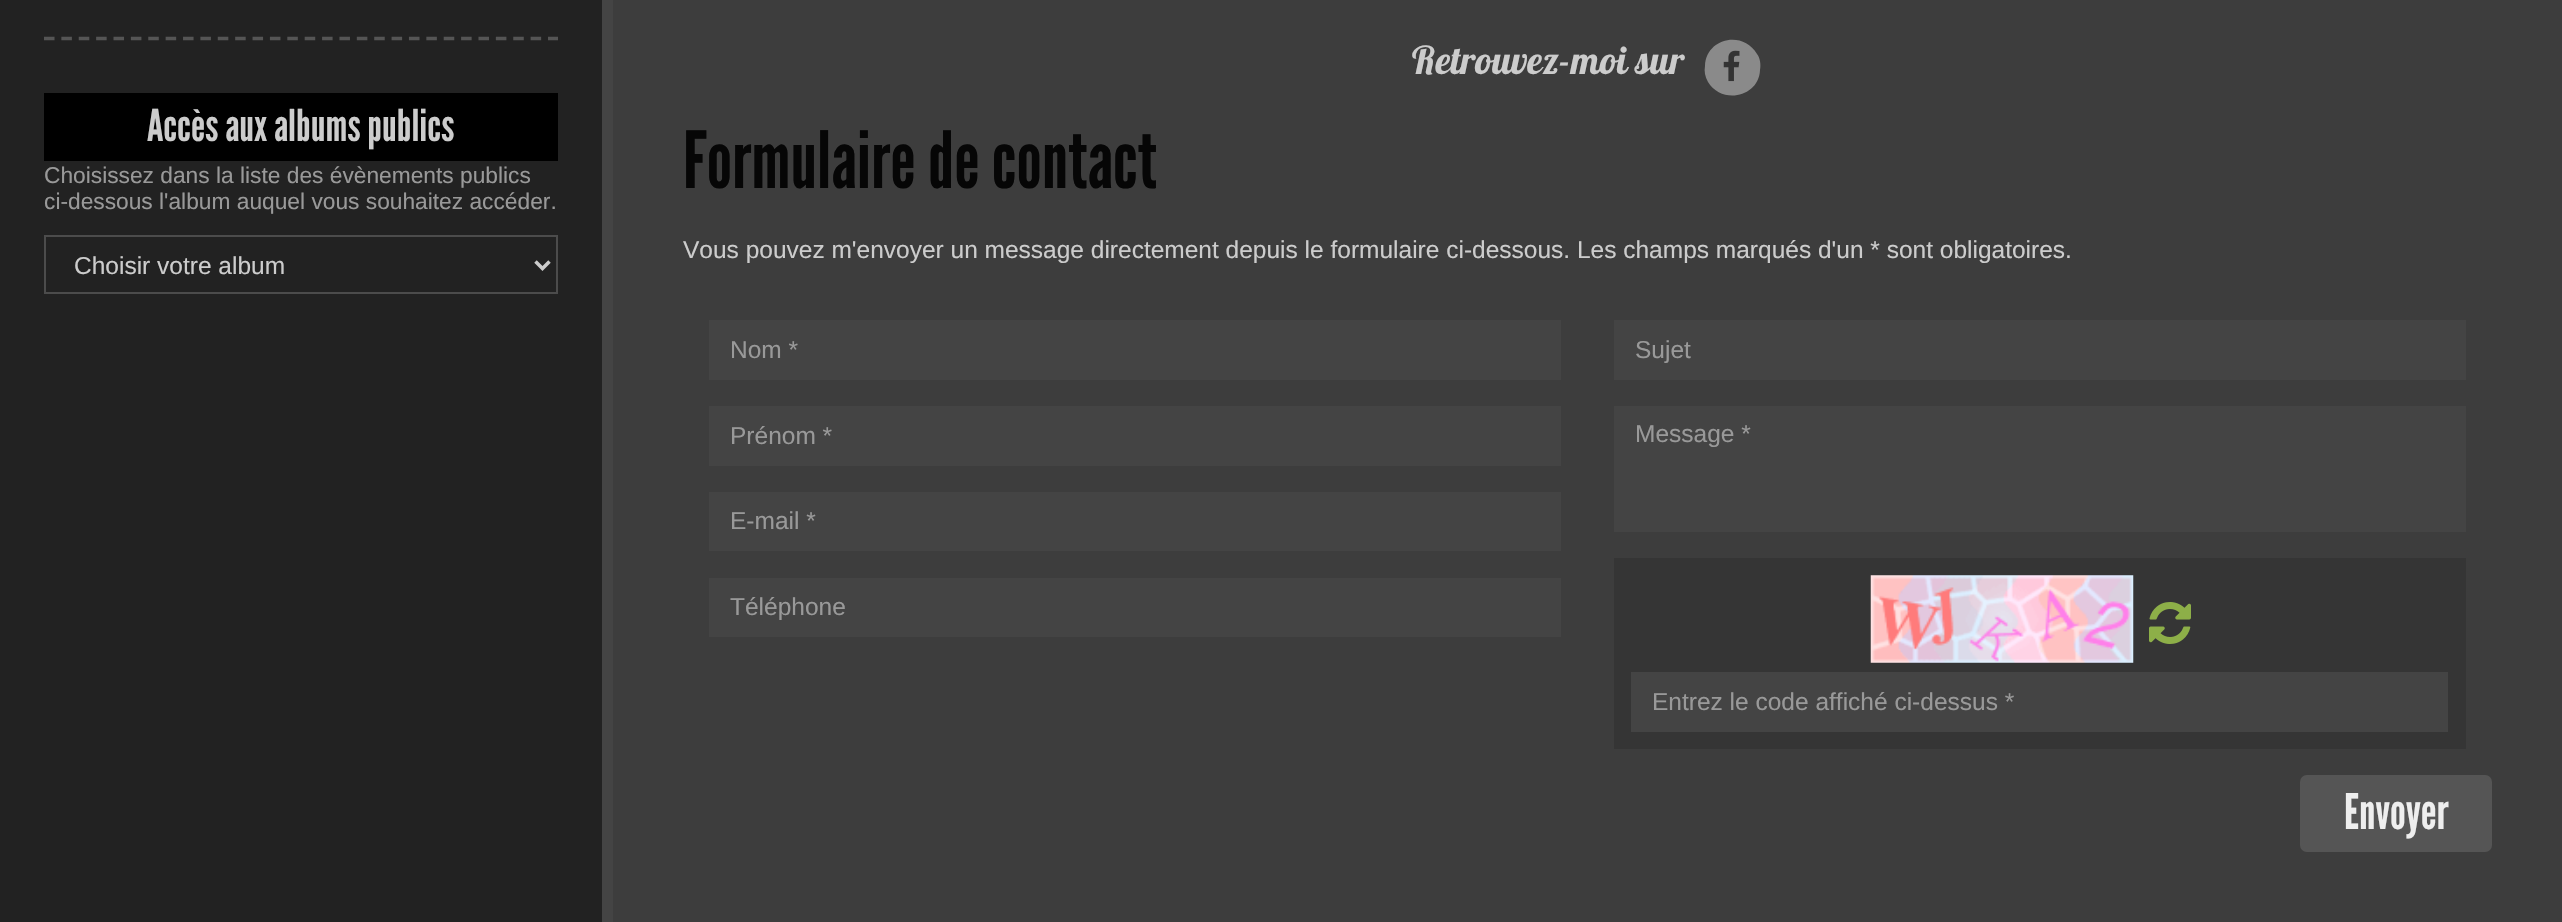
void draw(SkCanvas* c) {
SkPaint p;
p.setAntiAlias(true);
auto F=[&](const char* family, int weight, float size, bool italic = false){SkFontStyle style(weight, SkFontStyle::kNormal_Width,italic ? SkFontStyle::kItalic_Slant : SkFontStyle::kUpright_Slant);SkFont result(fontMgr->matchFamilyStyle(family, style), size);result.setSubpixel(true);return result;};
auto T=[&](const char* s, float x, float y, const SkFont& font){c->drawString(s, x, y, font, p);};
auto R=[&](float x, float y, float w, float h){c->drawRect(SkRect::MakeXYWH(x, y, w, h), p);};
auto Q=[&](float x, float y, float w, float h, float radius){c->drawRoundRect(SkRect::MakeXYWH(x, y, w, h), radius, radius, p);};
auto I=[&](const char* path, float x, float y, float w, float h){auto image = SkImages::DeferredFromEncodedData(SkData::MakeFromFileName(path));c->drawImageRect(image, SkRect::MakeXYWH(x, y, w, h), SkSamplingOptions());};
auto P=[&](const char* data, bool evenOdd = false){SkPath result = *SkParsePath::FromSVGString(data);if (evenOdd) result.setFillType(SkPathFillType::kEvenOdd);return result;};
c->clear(0xff3d3d3d);
p.setColor(0xff222222);
R(0,0,602,922);
p.setColor(0xff444444);
R(602,0,11,922);
p.setStroke(true);
p.setStrokeWidth(3.5);
p.setColor(0xff555555);
p.setPathEffect(SkDashPathEffect::Make({{10.5f,6.88f}}, 0));
c->drawPath(P("M44 38.5h514"),p);
p.setPathEffect(nullptr);
p.setStroke(false);
p.setColor(0xff000000);
R(44,93,514,68);
auto f1 = F("League Gothic",400,43.75);
p.setColor(0xffcccccc);
T("Accès aux albums publics",147,141,f1);
auto f2 = F("Liberation Sans",400,22.75);
p.setColor(0xff999999);
T("Choisissez dans la liste des évènements publics",44,183,f2);
T("ci-dessous l'album auquel vous souhaitez accéder.",44,209,f2);
p.setStroke(true);
p.setStrokeWidth(2);
p.setColor(0xff4c4c4c);
c->drawRect(SkRect::MakeXYWH(45,236,512,57),p);
p.setStrokeWidth(3.5);
p.setColor(0xffcccccc);
c->drawPath(P("M535.5 261.5l7 7l7-7"),p);
auto f3 = F("Liberation Sans",400,24.5);
p.setStroke(false);
T("Choisir votre album",74,274,f3);
auto f4 = F("Lobster Two",700,38.5,true);
T("Retrouvez-moi sur",1410,74,f4);
p.setColor(0xff8a8a8a);
c->drawPath(P("M1757 54c3 4 4 10 3 16c-1 27-38 35-52 12c-3-5-4-11-3-16c1-28 38-36 52-12z"),p);
I("1.png",1723,50,17,32);
auto f5 = F("League Gothic",400,78.75);
p.setColor(0xff060606);
T("Formulaire de contact",683,188,f5);
p.setColor(0xffcccccc);
T("Vous pouvez m'envoyer un message directement depuis le formulaire ci-dessous. Les champs marqués d'un * sont obligatoires.",683,258,f3);
p.setColor(0xff444444);
R(709,320,852,60);
p.setColor(0xff999999);
T("Nom *",730,358,f3);
p.setColor(0xff444444);
R(709,406,852,60);
p.setColor(0xff999999);
T("Prénom *",730,444,f3);
p.setColor(0xff444444);
R(709,492,852,59);
p.setColor(0xff999999);
T("E-mail *",730,529,f3);
p.setColor(0xff444444);
R(709,578,852,59);
p.setColor(0xff999999);
T("Téléphone",730,615,f3);
p.setColor(0xff444444);
R(1614,320,852,60);
p.setColor(0xff999999);
T("Sujet",1635,358,f3);
p.setColor(0xff444444);
R(1614,406,852,126);
p.setColor(0xff999999);
T("Message *",1635,442,f3);
p.setColor(0xff353535);
R(1614,558,852,191);
I("2.png",1870,575,264,88);
I("3.png",2149,602,42,42);
p.setColor(0xff444444);
R(1631,672,817,60);
p.setColor(0xff999999);
T("Entrez le code affiché ci-dessus *",1652,710,f3);
p.setColor(0xff555555);
Q(2300,775,192,77,7);
auto f6 = F("League Gothic",400,49);
p.setColor(0xffeeeeee);
T("Envoyer",2344,829,f6);
}
